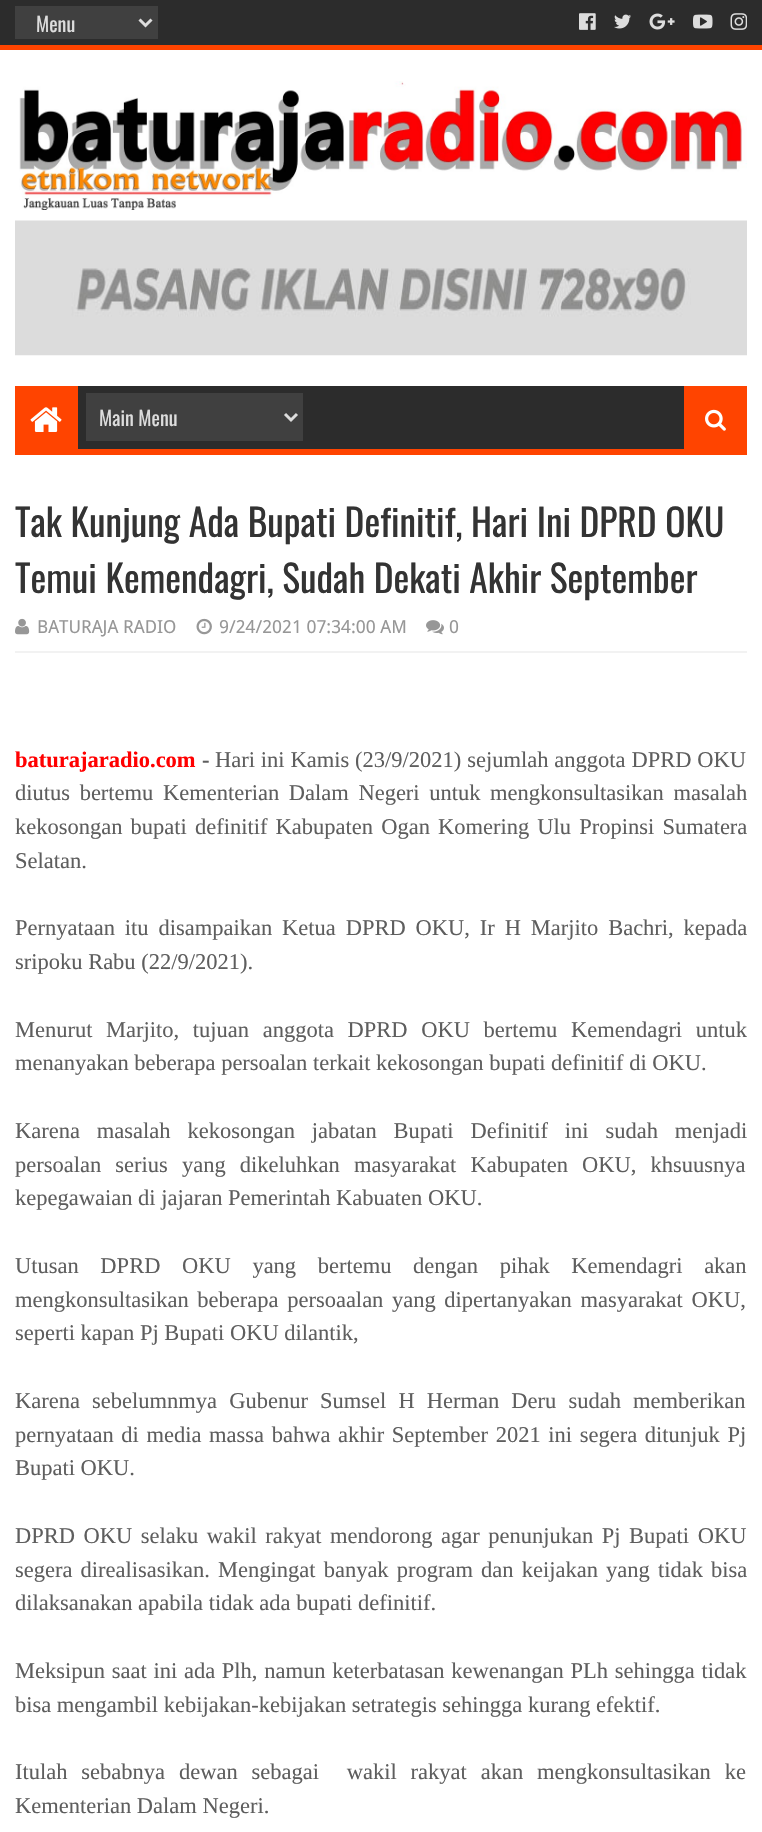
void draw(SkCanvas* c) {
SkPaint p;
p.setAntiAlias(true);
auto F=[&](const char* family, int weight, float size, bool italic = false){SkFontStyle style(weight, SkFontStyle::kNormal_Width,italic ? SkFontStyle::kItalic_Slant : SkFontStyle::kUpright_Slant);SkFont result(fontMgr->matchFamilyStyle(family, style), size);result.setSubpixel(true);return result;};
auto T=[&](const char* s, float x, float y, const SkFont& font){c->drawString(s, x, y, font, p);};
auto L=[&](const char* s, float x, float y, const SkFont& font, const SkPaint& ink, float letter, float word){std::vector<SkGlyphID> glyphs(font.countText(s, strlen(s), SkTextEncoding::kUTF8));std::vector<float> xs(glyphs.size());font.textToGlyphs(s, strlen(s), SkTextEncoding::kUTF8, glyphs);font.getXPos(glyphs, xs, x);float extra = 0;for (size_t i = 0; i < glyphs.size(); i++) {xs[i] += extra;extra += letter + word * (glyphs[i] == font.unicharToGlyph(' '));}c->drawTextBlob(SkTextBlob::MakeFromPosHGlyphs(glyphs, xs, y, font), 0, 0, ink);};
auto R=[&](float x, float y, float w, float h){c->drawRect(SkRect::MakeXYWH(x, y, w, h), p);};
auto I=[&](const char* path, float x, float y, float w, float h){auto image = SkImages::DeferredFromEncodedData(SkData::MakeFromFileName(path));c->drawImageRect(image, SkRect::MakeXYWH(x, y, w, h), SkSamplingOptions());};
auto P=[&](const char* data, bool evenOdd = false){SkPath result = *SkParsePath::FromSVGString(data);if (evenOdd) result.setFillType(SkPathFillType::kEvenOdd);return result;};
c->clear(0xffffffff);
p.setColor(0xff2c2c2c);
R(0,0,762,45);
p.setColor(0xffff4400);
R(0,45,762,5);
p.setColor(0xff404040);
R(15,6,143,33);
p.setStroke(true);
p.setStrokeWidth(3);
p.setColor(0xffdddddd);
c->drawPath(P("M139.5 19.5l6 6l6-6"),p);
auto f1 = F("Oswald",400,20);
p.setStroke(false);
T("Menu",36,32,f1);
I("1.png",579,13,17,17);
I("2.png",614,14,17,15);
I("3.png",649,13,26,17);
I("4.png",693,14,20,15);
I("5.png",730,13,17,17);
I("6.png",19,81,728,129);
I("7.png",15,220,732,136);
p.setColor(0xff2c2c2c);
R(78,386,606,63);
p.setColor(0xffff4400);
R(15,449,732,6);
R(15,386,63,63);
I("8.png",30,407,32,25);
p.setColor(0xff404040);
R(86,393,217,48);
p.setStroke(true);
p.setColor(0xffdddddd);
c->drawPath(P("M285 414l6 6l6-6"),p);
p.setStroke(false);
T("Main Menu",99,426,f1);
p.setColor(0xffff4400);
R(684,386,63,63);
I("9.png",705,409,21,22);
auto f2 = F("Oswald",400,37.5);
p.setColor(0xff333333);
T("Tak Kunjung Ada Bupati Definitif, Hari Ini DPRD OKU",15,537,f2);
T("Temui Kemendagri, Sudah Dekati Akhir September",15,593,f2);
p.setColor(0xfff2f2f2);
R(15,651,732,2);
I("10.png",15,618,15,17);
auto f3 = F("Droid Sans",400,18);
p.setColor(0xff979797);
T("BATURAJA RADIO",37,633,f3);
I("11.png",196,618,16,17);
T("9/24/2021 07:34:00 AM",219,633,f3);
I("12.png",426,620,18,15);
T("0",449,633,f3);
auto f4 = F("Liberation Serif",700,22.5);
p.setColor(0xffff0000);
T("baturajaradio.com",15,767,f4);
p.setColor(0xff5e5e5e);
T("-",202,767,f4);
auto f5 = F("Liberation Serif",400,22.5);
L("Hari ini Kamis (23/9/2021) sejumlah anggota DPRD OKU",215,767,f5,p,0,.25);
L("diutus bertemu Kementerian Dalam Negeri untuk mengkonsultasikan masalah",15,800,f5,p,0,4);
L("kekosongan bupati definitif Kabupaten Ogan Komering Ulu Propinsi Sumatera",15,834,f5,p,0,2.5);
T("Selatan.",15,868,f5);
L("Pernyataan itu disampaikan Ketua DPRD OKU, Ir H Marjito Bachri, kepada",15,935,f5,p,0,4.25);
T("sripoku Rabu (22/9/2021).",15,969,f5);
L("Menurut Marjito, tujuan anggota DPRD OKU bertemu Kemendagri untuk",15,1037,f5,p,0,8);
T("menanyakan beberapa persoalan terkait kekosongan bupati definitif di OKU.",15,1070,f5);
L("Karena masalah kekosongan jabatan Bupati Definitif ini sudah menjadi",15,1138,f5,p,0,11.25);
L("persoalan serius yang dikeluhkan masyarakat Kabupaten OKU, khsuusnya",15,1172,f5,p,0,8.5);
T("kepegawaian di jajaran Pemerintah Kabuaten OKU.",15,1205,f5);
L("Utusan DPRD OKU yang bertemu dengan pihak Kemendagri akan",15,1273,f5,p,0,16);
L("mengkonsultasikan beberapa persoaalan yang dipertanyakan masyarakat OKU,",15,1307,f5,p,0,3);
T("seperti kapan Pj Bupati OKU dilantik,",15,1340,f5);
L("Karena sebelumnmya Gubenur Sumsel H Herman Deru sudah memberikan",15,1408,f5,p,0,6.5);
L("pernyataan di media massa bahwa akhir September 2021 ini segera ditunjuk Pj",15,1442,f5,p,0,2);
T("Bupati OKU.",15,1475,f5);
L("DPRD OKU selaku wakil rakyat mendorong agar penunjukan Pj Bupati OKU",15,1543,f5,p,0,2.9);
L("segera direalisasikan. Mengingat banyak program dan keijakan yang tidak bisa",15,1577,f5,p,0,2.5);
T("dilaksanakan apabila tidak ada bupati definitif.",15,1610,f5);
L("Meksipun saat ini ada Plh, namun keterbatasan kewenangan PLh sehingga tidak",15,1678,f5,p,0,1.1);
T("bisa mengambil kebijakan-kebijakan setrategis sehingga kurang efektif.",15,1712,f5);
L("Itulah sebabnya dewan sebagai  wakil rakyat akan mengkonsultasikan ke",15,1779,f5,p,0,8.25);
T("Kementerian Dalam Negeri.",15,1813,f5);
}
